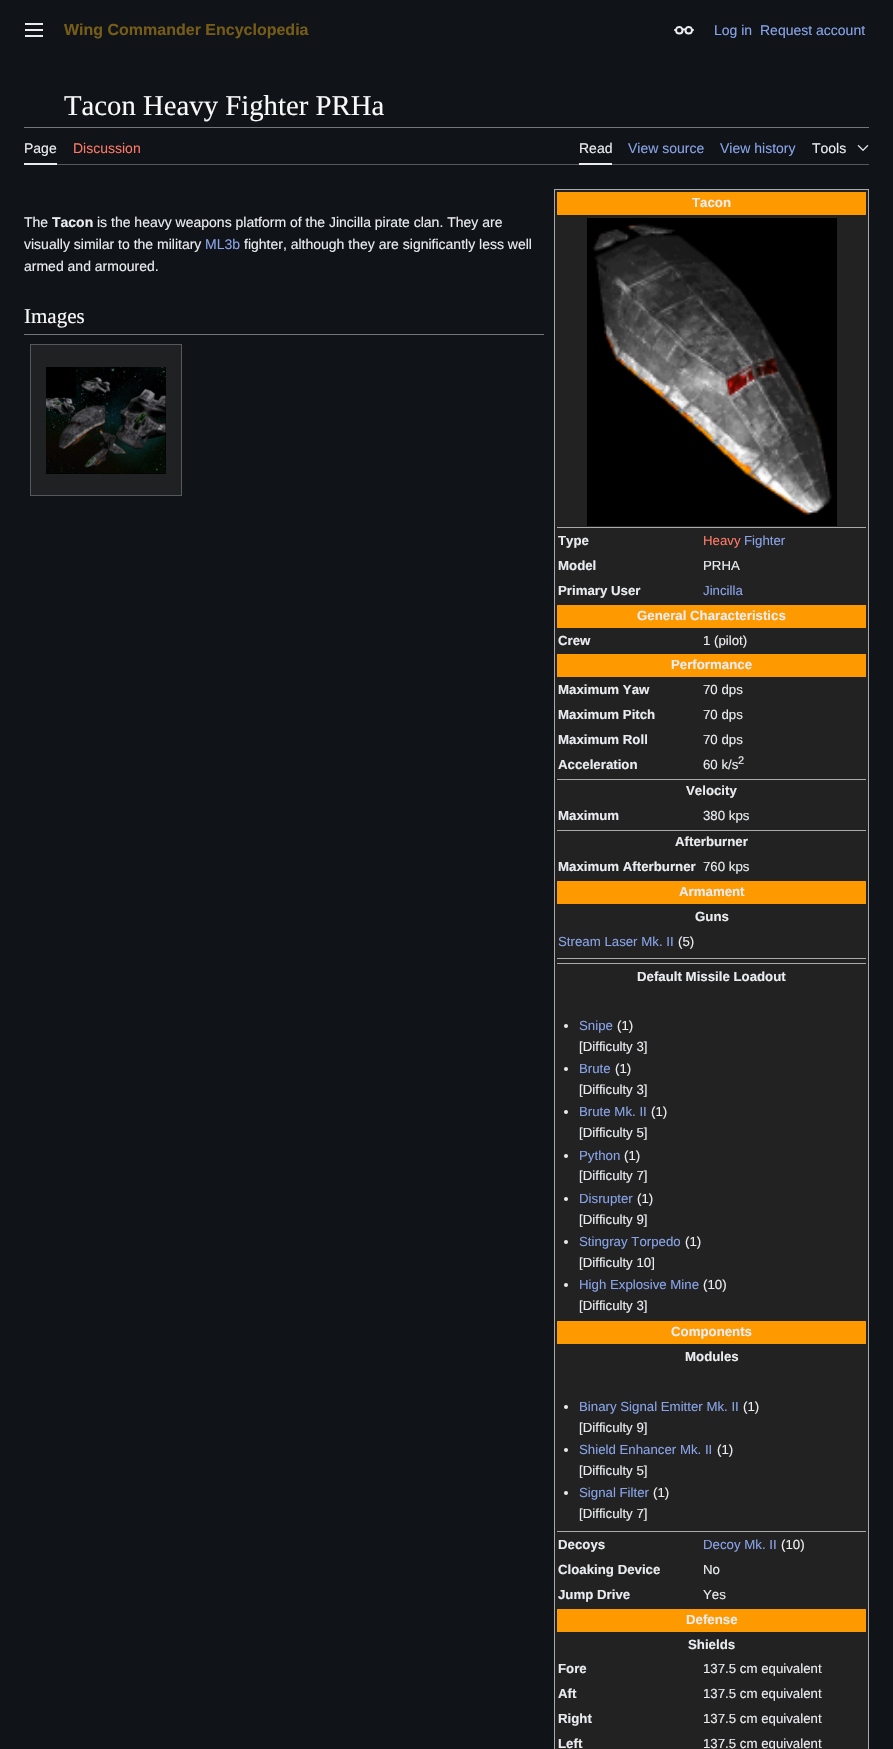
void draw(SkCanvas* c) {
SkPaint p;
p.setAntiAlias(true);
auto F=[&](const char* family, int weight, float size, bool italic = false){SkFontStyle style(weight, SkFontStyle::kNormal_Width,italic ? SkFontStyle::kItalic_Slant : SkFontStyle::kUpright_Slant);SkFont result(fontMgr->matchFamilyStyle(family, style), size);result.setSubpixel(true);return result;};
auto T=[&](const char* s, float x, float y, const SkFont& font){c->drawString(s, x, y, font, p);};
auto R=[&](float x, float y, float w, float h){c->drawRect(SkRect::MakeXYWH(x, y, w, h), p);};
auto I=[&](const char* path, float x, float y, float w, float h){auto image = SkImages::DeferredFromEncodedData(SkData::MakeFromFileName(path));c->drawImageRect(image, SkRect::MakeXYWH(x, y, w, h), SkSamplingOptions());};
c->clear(0xff101418);
I("1.png",25,23,18,14);
auto f1 = F("Liberation Sans",700,16);
p.setColor(0xff775c17);
T("Wing Commander Encyclopedia",64,35,f1);
I("2.png",674,26,20,9);
auto f2 = F("Liberation Sans",400,14);
p.setColor(0xff88a3e8);
T("Log in",714,35,f2);
T("Request account",760,35,f2);
auto f3 = F("Liberation Serif",400,28.75);
p.setColor(0xfff8f9fa);
T("Tacon Heavy Fighter PRHa",64,115,f3);
p.setColor(0xff72777d);
R(24,127,845,1);
p.setColor(0xff54595d);
R(57,164,812,1);
p.setColor(0xffeaecf0);
R(24,163,33,2);
T("Page",24,153,f2);
p.setColor(0xfffd7865);
T("Discussion",73,153,f2);
p.setColor(0xffeaecf0);
R(579,163,33,2);
T("Read",579,153,f2);
p.setColor(0xff88a3e8);
T("View source",628,153,f2);
T("View history",720,153,f2);
p.setColor(0xffeaecf0);
T("Tools",812,153,f2);
I("3.png",857,145,12,6);
T("The",24,227,f2);
auto f4 = F("Liberation Sans",700,14);
T("Tacon",52,227,f4);
T("is the heavy weapons platform of the Jincilla pirate clan. They are",97,227,f2);
T("visually similar to the military",24,249,f2);
p.setColor(0xff88a3e8);
T("ML3b",205,249,f2);
p.setColor(0xffeaecf0);
T("fighter, although they are significantly less well",244,249,f2);
T("armed and armoured.",24,271,f2);
p.setColor(0xff222222);
c->drawRect(SkRect::MakeXYWH(554.5,189.5,314,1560),p);
p.setStroke(true);
p.setStrokeWidth(1);
p.setColor(0xffaaaaaa);
c->drawRect(SkRect::MakeXYWH(554.5,189.5,314,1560),p);
p.setStroke(false);
p.setColor(0xffff9900);
R(557,192,309,23);
auto f5 = F("Liberation Sans",700,13.25);
p.setColor(0xffeaecf0);
T("Tacon",692,207,f5);
p.setColor(0xffaaaaaa);
R(557,527,309,1);
I("4.png",587,218,250,308);
p.setColor(0xffeaecf0);
T("Type",558,545,f5);
auto f6 = F("Liberation Sans",400,13.25);
p.setColor(0xfffd7865);
T("Heavy",703,545,f6);
p.setColor(0xff88a3e8);
T("Fighter",744,545,f6);
p.setColor(0xffeaecf0);
T("Model",558,570,f5);
T("PRHA",703,570,f6);
T("Primary User",558,595,f5);
p.setColor(0xff88a3e8);
T("Jincilla",703,595,f6);
p.setColor(0xffff9900);
R(557,605,309,23);
p.setColor(0xffeaecf0);
T("General Characteristics",637,620,f5);
T("Crew",558,645,f5);
T("1 (pilot)",703,645,f6);
p.setColor(0xffff9900);
R(557,654,309,23);
p.setColor(0xffeaecf0);
T("Performance",671,669,f5);
T("Maximum Yaw",558,694,f5);
T("70 dps",703,694,f6);
T("Maximum Pitch",558,719,f5);
T("70 dps",703,719,f6);
T("Maximum Roll",558,744,f5);
T("70 dps",703,744,f6);
T("Acceleration",558,769,f5);
T("60 k/s",703,769,f6);
auto f7 = F("Liberation Sans",400,11);
T("2",738,764,f7);
p.setColor(0xffaaaaaa);
R(557,779,309,1);
p.setColor(0xffeaecf0);
T("Velocity",686,795,f5);
T("Maximum",558,820,f5);
T("380 kps",703,820,f6);
p.setColor(0xffaaaaaa);
R(557,830,309,1);
p.setColor(0xffeaecf0);
T("Afterburner",675,846,f5);
T("Maximum Afterburner",558,871,f5);
T("760 kps",703,871,f6);
p.setColor(0xffff9900);
R(557,881,309,23);
p.setColor(0xffeaecf0);
T("Armament",679,896,f5);
T("Guns",695,921,f5);
p.setColor(0xff88a3e8);
T("Stream Laser Mk. II",558,946,f6);
p.setColor(0xffeaecf0);
T("(5)",678,946,f6);
p.setColor(0xffaaaaaa);
R(557,958,309,1);
R(557,963,309,1);
p.setColor(0xffeaecf0);
T("Default Missile Loadout",637,981,f5);
c->drawCircle(566,1026,2,p);
p.setColor(0xff88a3e8);
T("Snipe",579,1030,f6);
p.setColor(0xffeaecf0);
T("(1)",617,1030,f6);
T("[Difficulty 3]",579,1051,f6);
c->drawCircle(566,1069,2,p);
p.setColor(0xff88a3e8);
T("Brute",579,1073,f6);
p.setColor(0xffeaecf0);
T("(1)",615,1073,f6);
T("[Difficulty 3]",579,1094,f6);
c->drawCircle(566,1112,2,p);
p.setColor(0xff88a3e8);
T("Brute Mk. II",579,1116,f6);
p.setColor(0xffeaecf0);
T("(1)",651,1116,f6);
T("[Difficulty 5]",579,1137,f6);
c->drawCircle(566,1156,2,p);
p.setColor(0xff88a3e8);
T("Python",579,1160,f6);
p.setColor(0xffeaecf0);
T("(1)",624,1160,f6);
T("[Difficulty 7]",579,1180,f6);
c->drawCircle(566,1199,2,p);
p.setColor(0xff88a3e8);
T("Disrupter",579,1203,f6);
p.setColor(0xffeaecf0);
T("(1)",637,1203,f6);
T("[Difficulty 9]",579,1224,f6);
c->drawCircle(566,1242,2,p);
p.setColor(0xff88a3e8);
T("Stingray Torpedo",579,1246,f6);
p.setColor(0xffeaecf0);
T("(1)",685,1246,f6);
T("[Difficulty 10]",579,1267,f6);
c->drawCircle(566,1285,2,p);
p.setColor(0xff88a3e8);
T("High Explosive Mine",579,1289,f6);
p.setColor(0xffeaecf0);
T("(10)",703,1289,f6);
T("[Difficulty 3]",579,1310,f6);
p.setColor(0xffff9900);
R(557,1321,309,23);
p.setColor(0xffeaecf0);
T("Components",671,1336,f5);
T("Modules",685,1361,f5);
c->drawCircle(566,1407,2,p);
p.setColor(0xff88a3e8);
T("Binary Signal Emitter Mk. II",579,1411,f6);
p.setColor(0xffeaecf0);
T("(1)",743,1411,f6);
T("[Difficulty 9]",579,1432,f6);
c->drawCircle(566,1450,2,p);
p.setColor(0xff88a3e8);
T("Shield Enhancer Mk. II",579,1454,f6);
p.setColor(0xffeaecf0);
T("(1)",717,1454,f6);
T("[Difficulty 5]",579,1475,f6);
c->drawCircle(566,1493,2,p);
p.setColor(0xff88a3e8);
T("Signal Filter",579,1497,f6);
p.setColor(0xffeaecf0);
T("(1)",653,1497,f6);
T("[Difficulty 7]",579,1518,f6);
p.setColor(0xffaaaaaa);
R(557,1531,309,1);
p.setColor(0xffeaecf0);
T("Decoys",558,1549,f5);
p.setColor(0xff88a3e8);
T("Decoy Mk. II",703,1549,f6);
p.setColor(0xffeaecf0);
T("(10)",781,1549,f6);
T("Cloaking Device",558,1574,f5);
T("No",703,1574,f6);
T("Jump Drive",558,1599,f5);
T("Yes",703,1599,f6);
p.setColor(0xffff9900);
R(557,1609,309,23);
p.setColor(0xffeaecf0);
T("Defense",686,1624,f5);
T("Shields",688,1649,f5);
T("Fore",558,1673,f5);
T("137.5 cm equivalent",703,1673,f6);
T("Aft",558,1698,f5);
T("137.5 cm equivalent",703,1698,f6);
T("Right",558,1723,f5);
T("137.5 cm equivalent",703,1723,f6);
T("Left",558,1748,f5);
T("137.5 cm equivalent",703,1748,f6);
p.setColor(0xff72777d);
R(24,334,520,1);
auto f8 = F("Liberation Serif",400,21);
p.setColor(0xfff8f9fa);
T("Images",24,323,f8);
p.setColor(0xff202122);
c->drawRect(SkRect::MakeXYWH(30.5,344.5,151,151),p);
p.setStroke(true);
p.setColor(0xff54595d);
c->drawRect(SkRect::MakeXYWH(30.5,344.5,151,151),p);
I("5.png",46,367,120,107);
}
